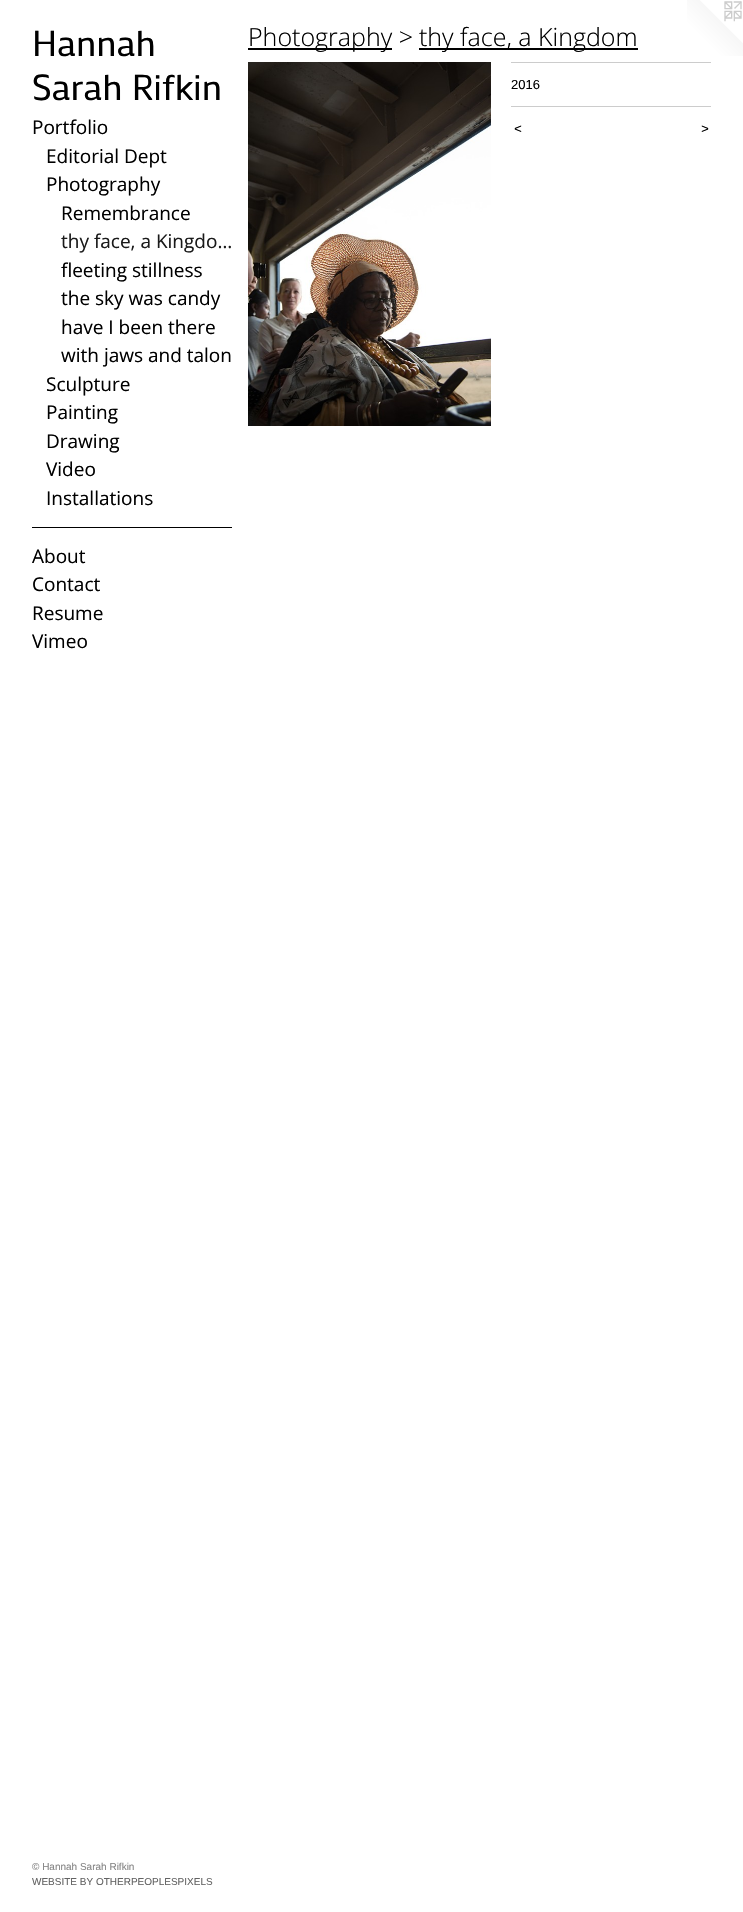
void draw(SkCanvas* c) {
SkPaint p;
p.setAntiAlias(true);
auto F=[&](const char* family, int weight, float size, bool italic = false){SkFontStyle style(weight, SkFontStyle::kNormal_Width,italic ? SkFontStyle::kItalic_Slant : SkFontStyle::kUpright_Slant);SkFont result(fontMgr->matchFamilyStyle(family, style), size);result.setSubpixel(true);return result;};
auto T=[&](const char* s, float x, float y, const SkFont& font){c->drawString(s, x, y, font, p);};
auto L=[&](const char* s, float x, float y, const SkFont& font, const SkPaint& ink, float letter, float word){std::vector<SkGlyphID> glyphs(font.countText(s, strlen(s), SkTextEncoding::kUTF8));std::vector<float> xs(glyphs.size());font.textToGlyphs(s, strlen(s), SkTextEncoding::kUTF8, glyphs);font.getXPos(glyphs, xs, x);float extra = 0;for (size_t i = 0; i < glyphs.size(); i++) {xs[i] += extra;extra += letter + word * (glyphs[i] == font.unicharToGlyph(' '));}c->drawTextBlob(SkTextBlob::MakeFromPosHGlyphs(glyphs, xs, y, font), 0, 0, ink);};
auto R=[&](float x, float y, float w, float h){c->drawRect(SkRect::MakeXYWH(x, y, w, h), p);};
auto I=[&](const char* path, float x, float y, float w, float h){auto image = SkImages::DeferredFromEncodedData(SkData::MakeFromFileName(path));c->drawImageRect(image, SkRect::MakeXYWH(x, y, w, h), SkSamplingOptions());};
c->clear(0xffffffff);
auto f1 = F("Mako",400,36);
p.setColor(0xff000000);
T("Hannah",32,56,f1);
T("Sarah Rifkin",32,100,f1);
auto f2 = F("Open Sans",400,19);
T("Portfolio",32,134,f2);
T("Editorial Dept",46,163,f2);
T("Photography",46,191,f2);
T("Remembrance",61,220,f2);
p.setColor(0xff1a1a1a);
T("thy face, a Kingdo…",61,248,f2);
p.setColor(0xff000000);
T("fleeting stillness",61,277,f2);
T("the sky was candy",61,305,f2);
T("have I been there",61,334,f2);
T("with jaws and talon",61,362,f2);
T("Sculpture",46,391,f2);
T("Painting",46,419,f2);
T("Drawing",46,448,f2);
T("Video",46,476,f2);
T("Installations",46,505,f2);
R(32,527,200,1);
T("About",32,563,f2);
T("Contact",32,591,f2);
T("Resume",32,620,f2);
T("Vimeo",32,648,f2);
auto f3 = F("Liberation Sans",400,10);
p.setColor(0xff858585);
T("© Hannah Sarah Rifkin",32,1870,f3);
p.setColor(0xff636363);
T("WEBSITE BY OTHERPEOPLESPIXELS",32,1885,f3);
p.setColor(0xff000000);
R(248,48,144,2);
auto f4 = F("Open Sans",300,25);
T("Photography >",248,46,f4);
R(419,48,219,2);
T("thy face, a Kingdom",419,46,f4);
I("1.png",248,62,243,364);
p.setColor(0xffcccccc);
R(511,62,200,1);
auto f5 = F("Liberation Sans",400,13);
p.setColor(0xff000000);
T("2016",511,89,f5);
p.setColor(0xffcccccc);
R(511,106,200,1);
auto f6 = F("Liberation Sans",400,13,true);
p.setColor(0xff000000);
L("<",514,133,f6,p,1,0);
L(">",701,133,f6,p,1,0);
I("2.png",687,0,56,56);
}
